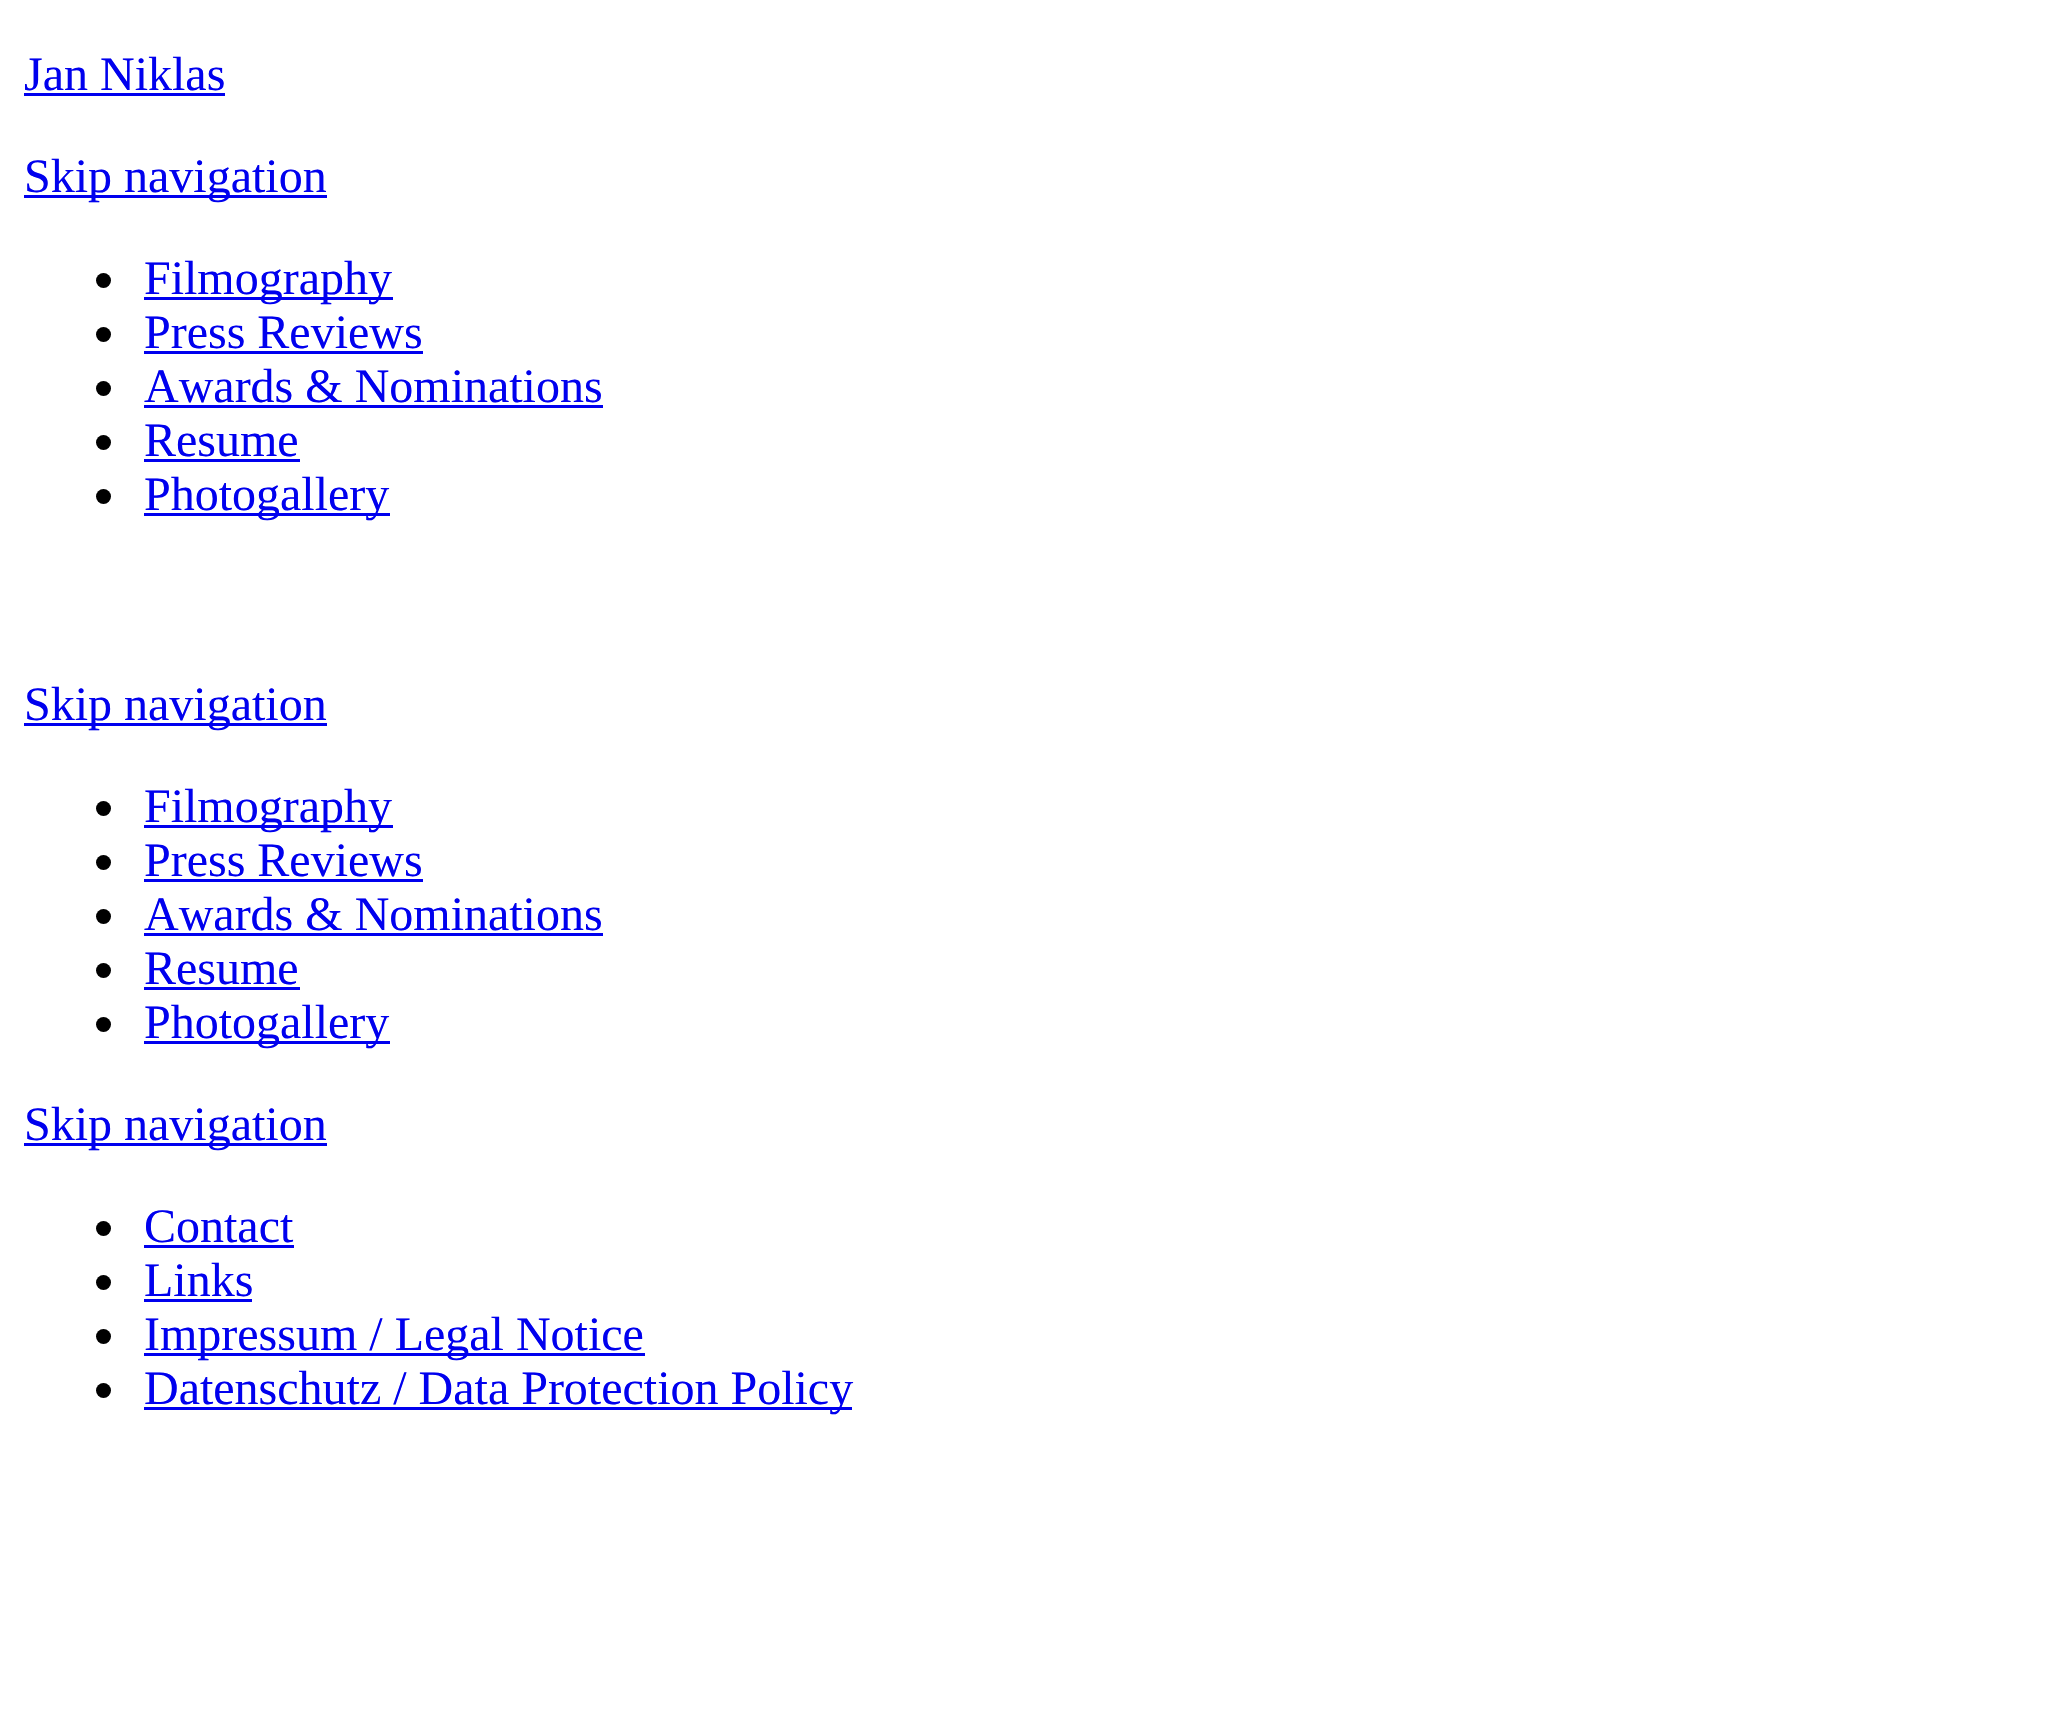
void draw(SkCanvas* c) {
SkPaint p;
p.setAntiAlias(true);
auto F=[&](const char* family, int weight, float size, bool italic = false){SkFontStyle style(weight, SkFontStyle::kNormal_Width,italic ? SkFontStyle::kItalic_Slant : SkFontStyle::kUpright_Slant);SkFont result(fontMgr->matchFamilyStyle(family, style), size);result.setSubpixel(true);return result;};
auto T=[&](const char* s, float x, float y, const SkFont& font){c->drawString(s, x, y, font, p);};
auto R=[&](float x, float y, float w, float h){c->drawRect(SkRect::MakeXYWH(x, y, w, h), p);};
c->clear(0xffffffff);
auto f1 = F("Liberation Serif",400,48);
p.setColor(0xff0000ee);
T("Jan Niklas",24,90,f1);
R(24,93,201,3);
R(24,195,303,3);
T("Skip navigation",24,192,f1);
p.setColor(0xff000000);
c->drawCircle(103.5,280.5,7.5,p);
p.setColor(0xff0000ee);
R(144,297,249,3);
T("Filmography",144,294,f1);
p.setColor(0xff000000);
c->drawCircle(103.5,334.5,7.5,p);
p.setColor(0xff0000ee);
T("Press Reviews",144,348,f1);
R(144,351,279,3);
p.setColor(0xff000000);
c->drawCircle(103.5,388.5,7.5,p);
p.setColor(0xff0000ee);
T("Awards & Nominations",144,402,f1);
R(144,405,459,3);
p.setColor(0xff000000);
c->drawCircle(103.5,442.5,7.5,p);
p.setColor(0xff0000ee);
T("Resume",144,456,f1);
R(144,459,156,3);
p.setColor(0xff000000);
c->drawCircle(103.5,496.5,7.5,p);
p.setColor(0xff0000ee);
R(144,513,246,3);
T("Photogallery",144,510,f1);
R(24,723,303,3);
T("Skip navigation",24,720,f1);
p.setColor(0xff000000);
c->drawCircle(103.5,808.5,7.5,p);
p.setColor(0xff0000ee);
R(144,825,249,3);
T("Filmography",144,822,f1);
p.setColor(0xff000000);
c->drawCircle(103.5,862.5,7.5,p);
p.setColor(0xff0000ee);
T("Press Reviews",144,876,f1);
R(144,879,279,3);
p.setColor(0xff000000);
c->drawCircle(103.5,916.5,7.5,p);
p.setColor(0xff0000ee);
T("Awards & Nominations",144,930,f1);
R(144,933,459,3);
p.setColor(0xff000000);
c->drawCircle(103.5,970.5,7.5,p);
p.setColor(0xff0000ee);
T("Resume",144,984,f1);
R(144,987,156,3);
p.setColor(0xff000000);
c->drawCircle(103.5,1024.5,7.5,p);
p.setColor(0xff0000ee);
R(144,1041,246,3);
T("Photogallery",144,1038,f1);
R(24,1143,303,3);
T("Skip navigation",24,1140,f1);
p.setColor(0xff000000);
c->drawCircle(103.5,1228.5,7.5,p);
p.setColor(0xff0000ee);
T("Contact",144,1242,f1);
R(144,1245,150,3);
p.setColor(0xff000000);
c->drawCircle(103.5,1282.5,7.5,p);
p.setColor(0xff0000ee);
T("Links",144,1296,f1);
R(144,1299,108,3);
p.setColor(0xff000000);
c->drawCircle(103.5,1336.5,7.5,p);
p.setColor(0xff0000ee);
R(144,1353,501,3);
T("Impressum / Legal Notice",144,1350,f1);
p.setColor(0xff000000);
c->drawCircle(103.5,1390.5,7.5,p);
p.setColor(0xff0000ee);
R(144,1407,708,3);
T("Datenschutz / Data Protection Policy",144,1404,f1);
}
